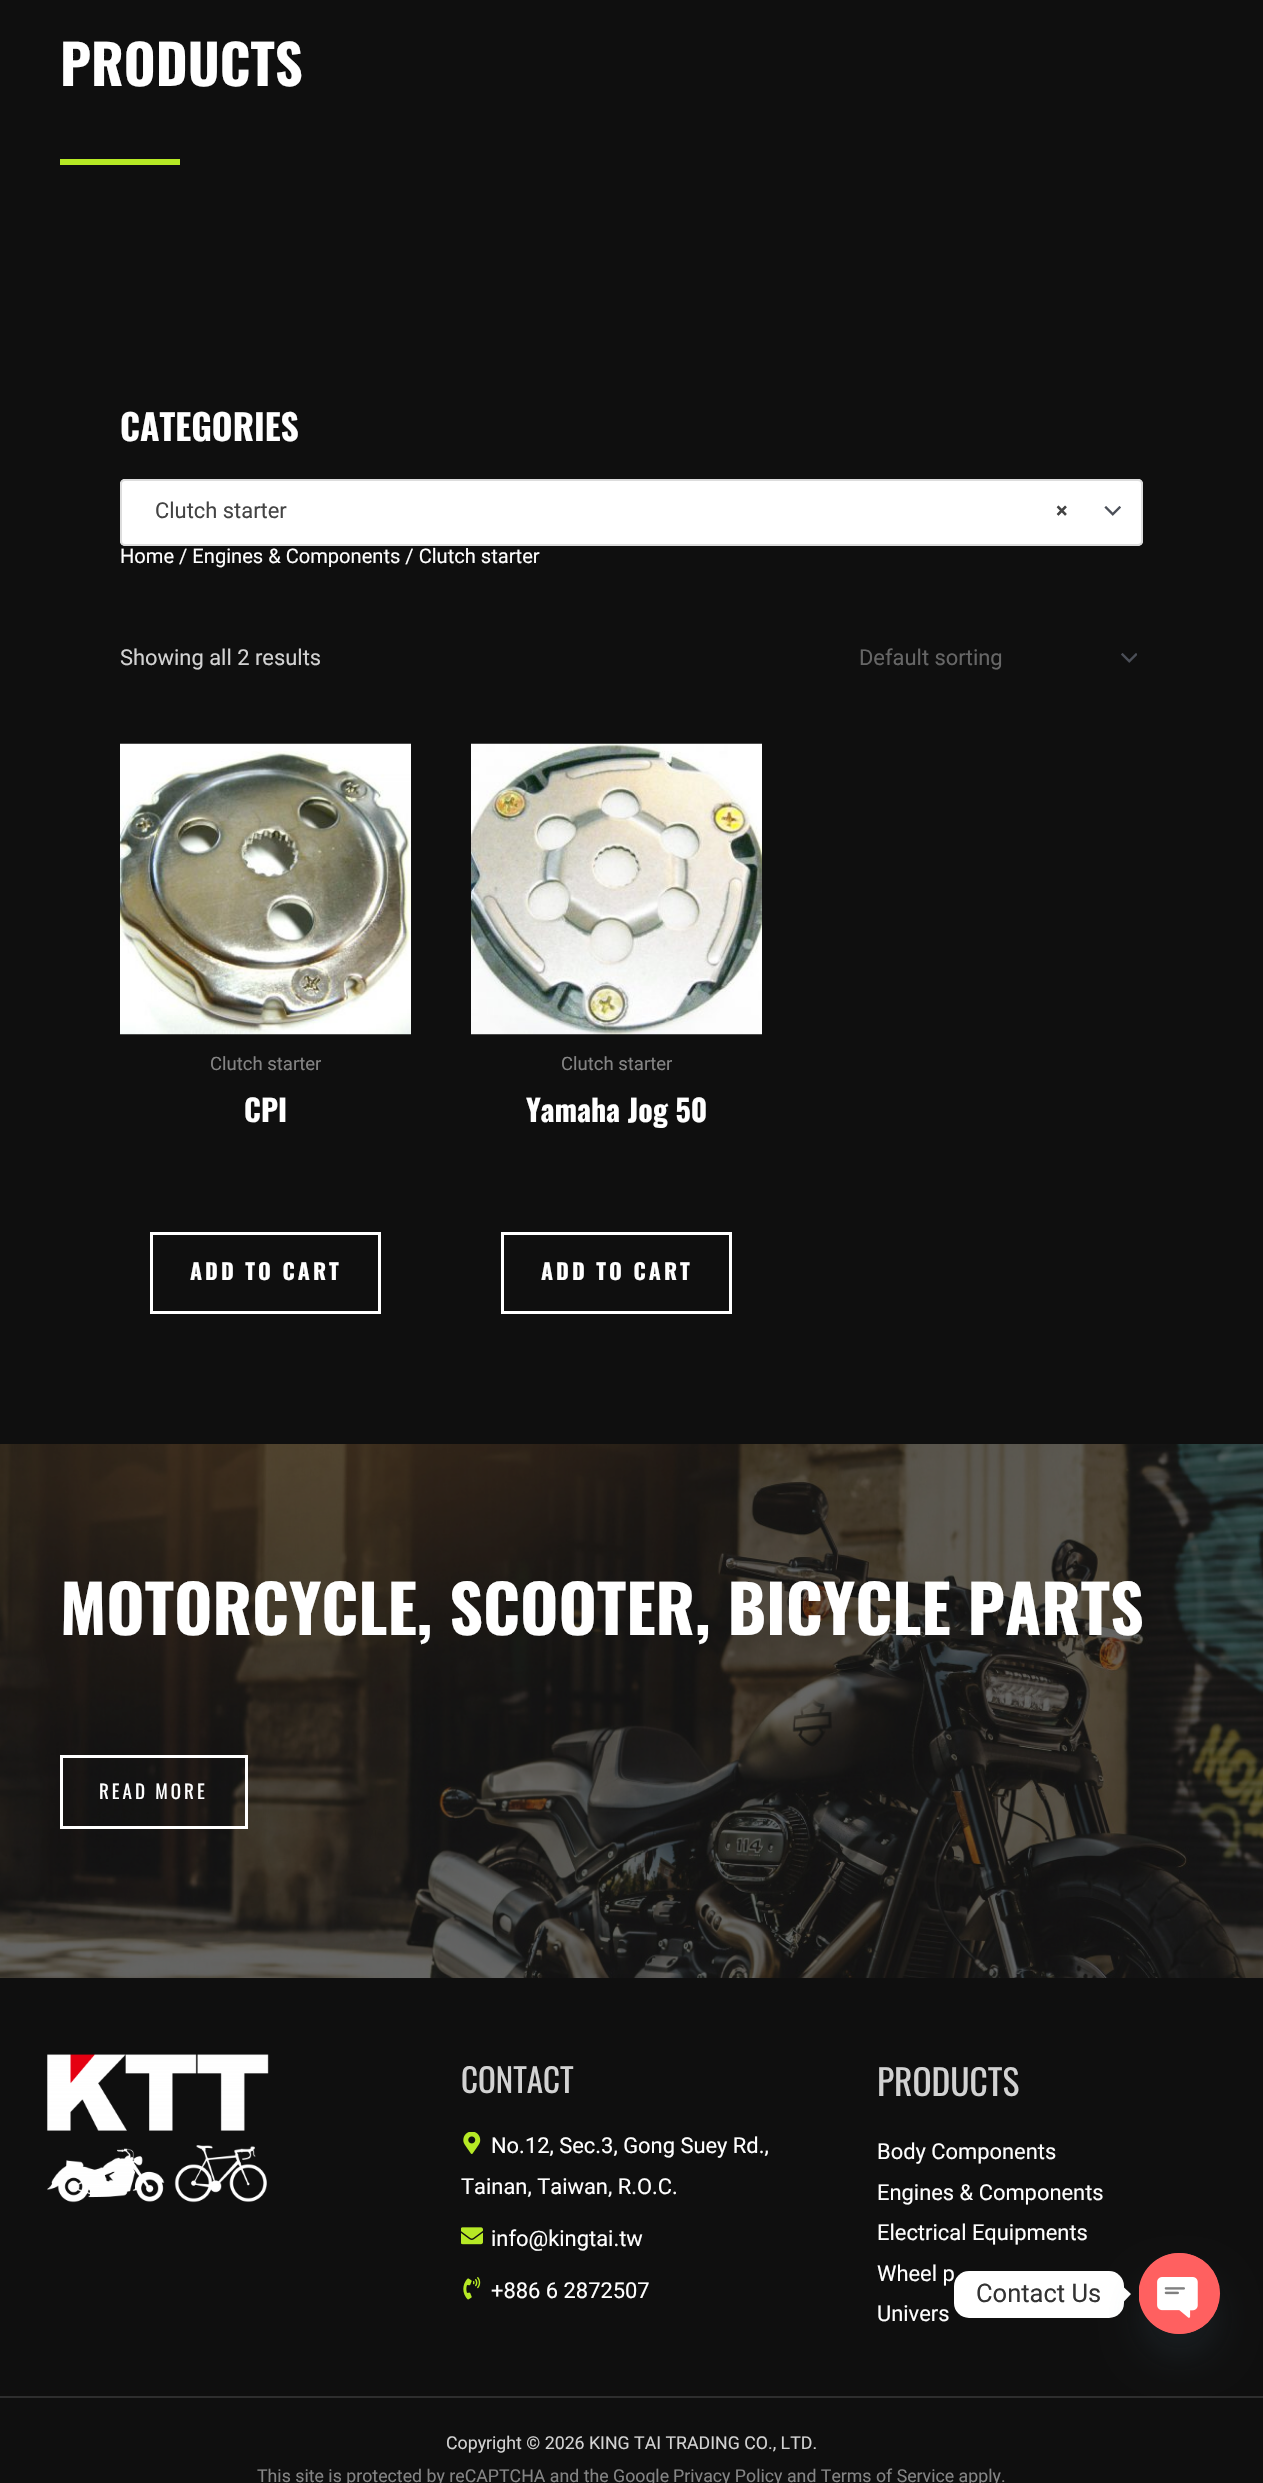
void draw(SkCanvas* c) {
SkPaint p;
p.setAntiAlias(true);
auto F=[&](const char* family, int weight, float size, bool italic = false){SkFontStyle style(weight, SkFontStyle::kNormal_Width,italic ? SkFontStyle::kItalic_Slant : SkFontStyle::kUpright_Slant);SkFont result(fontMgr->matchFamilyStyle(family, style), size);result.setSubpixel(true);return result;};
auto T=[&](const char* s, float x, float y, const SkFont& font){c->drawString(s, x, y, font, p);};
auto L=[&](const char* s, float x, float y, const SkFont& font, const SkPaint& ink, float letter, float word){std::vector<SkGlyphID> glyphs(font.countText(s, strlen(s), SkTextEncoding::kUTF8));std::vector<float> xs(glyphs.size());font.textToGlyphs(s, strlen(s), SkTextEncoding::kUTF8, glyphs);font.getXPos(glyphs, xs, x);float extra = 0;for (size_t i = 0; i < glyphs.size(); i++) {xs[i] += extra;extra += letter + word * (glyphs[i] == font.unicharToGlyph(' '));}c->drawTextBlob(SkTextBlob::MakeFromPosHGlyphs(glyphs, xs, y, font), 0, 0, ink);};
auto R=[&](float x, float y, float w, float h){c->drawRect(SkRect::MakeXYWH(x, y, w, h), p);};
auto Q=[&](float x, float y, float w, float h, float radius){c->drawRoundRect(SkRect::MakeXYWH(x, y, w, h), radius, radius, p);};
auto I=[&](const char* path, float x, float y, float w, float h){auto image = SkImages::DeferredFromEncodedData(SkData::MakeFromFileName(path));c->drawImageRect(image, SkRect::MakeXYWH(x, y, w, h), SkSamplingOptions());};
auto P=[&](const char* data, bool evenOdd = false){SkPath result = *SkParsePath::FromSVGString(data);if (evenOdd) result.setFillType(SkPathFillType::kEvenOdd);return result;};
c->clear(0xff0f0f0f);
auto f1 = F("Oswald",700,54.5);
p.setColor(0xffffffff);
T("PRODUCTS",60,86,f1);
p.setColor(0xffb6e925);
R(60,159,120,6);
auto f2 = F("Oswald",700,35.5);
p.setColor(0xffffffff);
T("CATEGORIES",120,441,f2);
Q(120,479,1023,67,5);
I("1.png",1104,506,17,10);
p.setStroke(true);
p.setStrokeWidth(2);
p.setColor(0xffdddddd);
c->drawRoundRect(SkRect::MakeXYWH(121,480,1021,65),4,4,p);
auto f3 = F("Roboto",400,21.9);
p.setStroke(false);
p.setColor(0xff444444);
T("Clutch starter",155,518,f3);
auto f4 = F("Roboto",700,21.9);
T("×",1056,518,f4);
auto f5 = F("Roboto",400,20.1);
p.setColor(0xffffffff);
T("Home / Engines & Components / Clutch starter",120,563,f5);
p.setColor(0xffd2d2d2);
T("Showing all 2 results",120,665,f3);
I("2.png",1121,653,16,10);
p.setColor(0xff666666);
T("Default sorting",859,665,f3);
I("3.png",120,743,291,292);
auto f6 = F("Roboto",400,18.5);
p.setColor(0xff848484);
T("Clutch starter",210,1070,f6);
auto f7 = F("Oswald",700,30);
p.setColor(0xffffffff);
T("CPI",244,1122,f7);
p.setStroke(true);
p.setStrokeWidth(3);
c->drawRect(SkRect::MakeXYWH(151.5,1233.5,228,79),p);
auto f8 = F("Oswald",700,21.9);
p.setStroke(false);
L("ADD TO CART",190,1280,f8,p,3,0);
I("4.png",471,743,291,292);
p.setColor(0xff848484);
T("Clutch starter",561,1070,f6);
p.setColor(0xffffffff);
T("Yamaha Jog 50",526,1122,f7);
p.setStroke(true);
c->drawRect(SkRect::MakeXYWH(502.5,1233.5,228,79),p);
p.setStroke(false);
L("ADD TO CART",541,1280,f8,p,3,0);
I("5.png",0,1444,1263,534);
auto f9 = F("Oswald",700,65.7);
T("MOTORCYCLE, SCOOTER, BICYCLE PARTS",60,1635,f9);
p.setStroke(true);
c->drawRect(SkRect::MakeXYWH(61.5,1756.5,185,71),p);
auto f10 = F("Oswald",400,19);
p.setStroke(false);
L("READ MORE",99,1799,f10,p,3,0);
I("6.png",47,2054,222,149);
auto f11 = F("Oswald",400,33);
p.setColor(0xffd2d2d2);
T("CONTACT",461,2093,f11);
I("7.png",463,2132,18,22);
p.setColor(0xffffffff);
T("No.12, Sec.3, Gong Suey Rd.,",491,2153,f3);
T("Tainan, Taiwan, R.O.C.",461,2194,f3);
I("8.png",461,2227,22,18);
T("info@kingtai.tw",491,2246,f3);
I("9.png",463,2277,18,23);
T("+886 6 2872507",491,2298,f3);
auto f12 = F("Oswald",400,35.5);
p.setColor(0xffd2d2d2);
T("PRODUCTS",877,2096,f12);
p.setColor(0xffffffff);
T("Body Components",877,2159,f3);
T("Engines & Components",877,2200,f3);
T("Electrical Equipments",877,2240,f3);
T("Wheel p",877,2281,f3);
T("Univers",877,2321,f3);
p.setColor(0xff2e2e2e);
R(0,2396,1263,2);
auto f13 = F("Roboto",400,17.75);
p.setColor(0xffd2d2d2);
T("Copyright © 2026 KING TAI TRADING CO., LTD.",446,2449,f13);
p.setColor(0xff848484);
T("This site is protected by reCAPTCHA and the Google",257,2482,f13);
T("Privacy Policy and Terms of Service apply.",673,2482,f13);
p.setColor(0xffffffff);
Q(954,2271,170,47,15);
auto f14 = F("Roboto",400,25.5);
p.setColor(0xff333333);
T("Contact Us",976,2302,f14);
p.setColor(0xffffffff);
c->drawPath(P("M1123.5 2302v-15l7.5 7z"),p);
p.setColor(0x2949687e);
p.setMaskFilter(SkMaskFilter::MakeBlur(kNormal_SkBlurStyle, 18));
c->drawRoundRect(SkRect::MakeXYWH(1139,2277,81,81),40.5,40.5,p);
p.setMaskFilter(nullptr);
p.setColor(0xffff6060);
c->drawCircle(1179.5,2293.5,40.5,p);
I("10.png",1139,2253,81,81);
}
